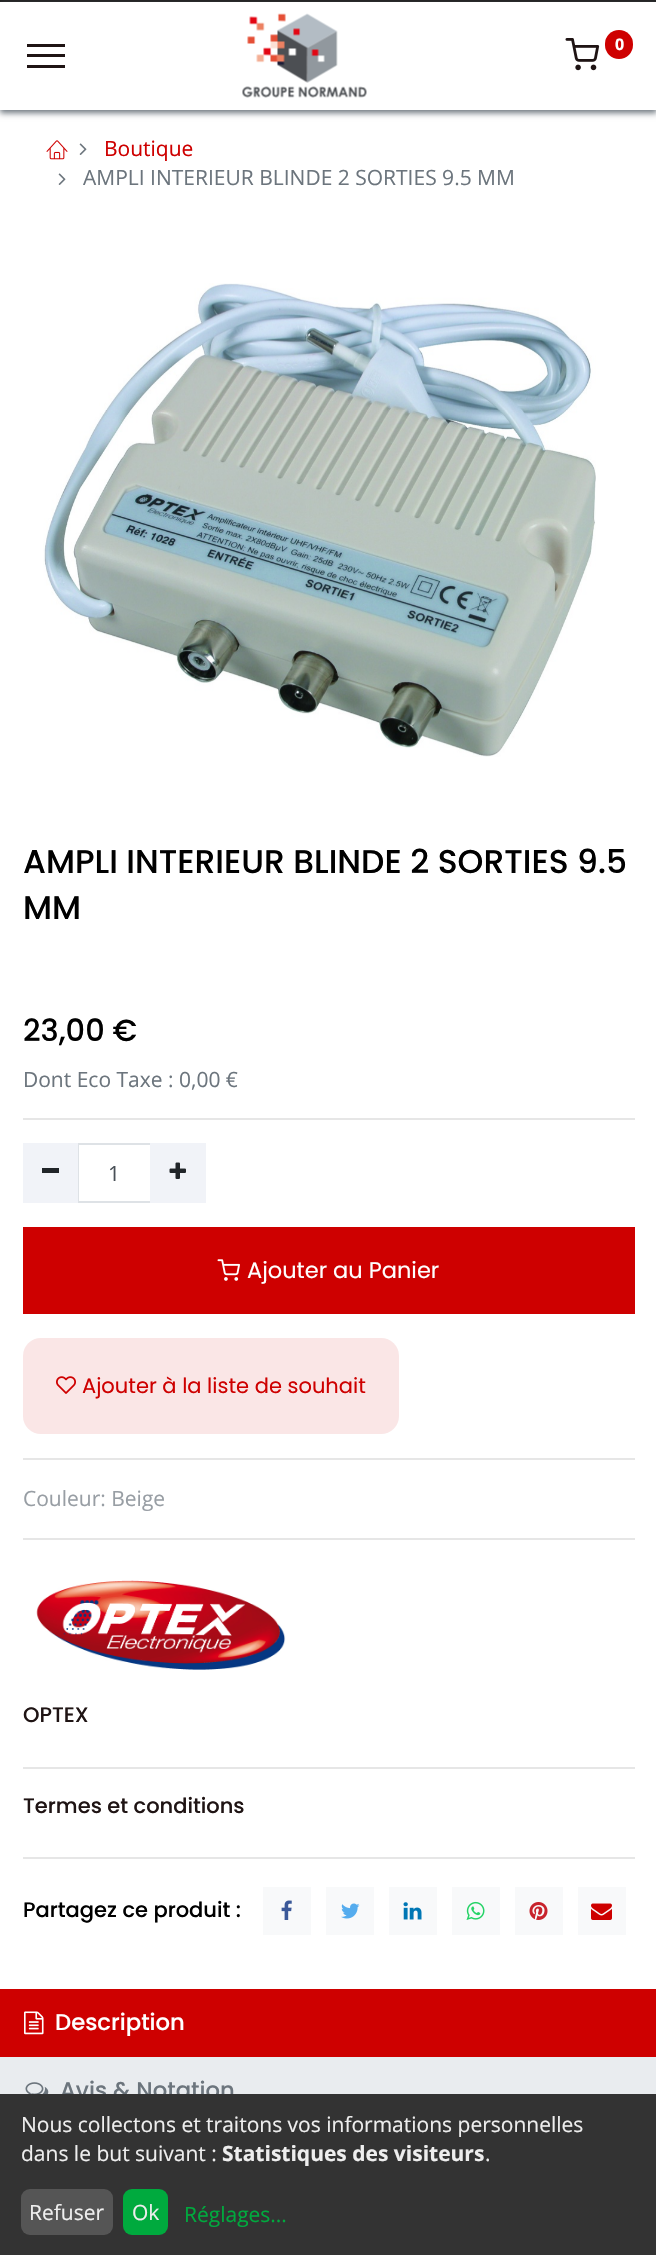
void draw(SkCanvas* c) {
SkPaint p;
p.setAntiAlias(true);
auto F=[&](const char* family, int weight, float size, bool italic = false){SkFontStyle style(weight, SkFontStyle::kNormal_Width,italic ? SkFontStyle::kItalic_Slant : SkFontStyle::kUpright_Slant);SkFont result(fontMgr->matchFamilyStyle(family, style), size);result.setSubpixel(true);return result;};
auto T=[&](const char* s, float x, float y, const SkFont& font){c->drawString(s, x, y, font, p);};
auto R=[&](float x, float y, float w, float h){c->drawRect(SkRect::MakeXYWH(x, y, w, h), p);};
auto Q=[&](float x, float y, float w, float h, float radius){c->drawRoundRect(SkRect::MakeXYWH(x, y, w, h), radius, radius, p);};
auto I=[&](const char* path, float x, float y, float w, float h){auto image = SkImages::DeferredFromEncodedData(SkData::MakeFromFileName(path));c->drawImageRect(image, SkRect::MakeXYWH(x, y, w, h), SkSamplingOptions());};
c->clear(0xffffffff);
p.setColor(0xff1f1f1f);
R(0,0,656,2);
p.setColor(0xff6c757d);
p.setMaskFilter(SkMaskFilter::MakeBlur(kNormal_SkBlurStyle, 3));
c->drawRect(SkRect::MakeXYWH(0,5,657,108),p);
p.setMaskFilter(nullptr);
p.setColor(0xffffffff);
R(0,2,656,108);
p.setColor(0xff1f1414);
R(27,44,38,3);
R(27,54,38,3);
R(27,65,38,3);
I("1.png",242,13,125,85);
I("2.png",565,38,35,33);
p.setColor(0xffce0000);
Q(605,30,28,29,14);
auto f1 = F("Open Sans",700,16);
p.setColor(0xffffffff);
T("0",615,50,f1);
I("3.png",46,140,22,20);
I("4.png",79,143,8,12);
auto f2 = F("Open Sans",400,21);
p.setColor(0xffce0000);
T("Boutique",104,156,f2);
I("4.png",58,173,8,12);
p.setColor(0xff6c757d);
T("AMPLI INTERIEUR BLINDE 2 SORTIES 9.5 MM",83,185,f2);
I("5.png",43,283,553,474);
auto f3 = F("Poppins",500,32.9);
p.setColor(0xff000000);
T("AMPLI INTERIEUR BLINDE 2 SORTIES 9.5",23,873,f3);
T("MM",23,919,f3);
auto f4 = F("Poppins",500,30.5);
T("23,00 €",23,1041,f4);
p.setColor(0xff6c757d);
T("Dont Eco Taxe : 0,00 €",23,1087,f2);
p.setColor(0xffe6e6e6);
R(23,1118,612,2);
p.setStroke(true);
p.setStrokeWidth(2);
p.setColor(0xffdee2e6);
c->drawRect(SkRect::MakeXYWH(78,1144,73,58),p);
p.setStroke(false);
p.setColor(0xfff1f3f8);
R(23,1143,55,60);
p.setColor(0xff212529);
R(42,1168,17,5);
p.setColor(0xff495057);
T("1",108,1181,f2);
p.setColor(0xfff1f3f8);
R(150,1143,56,60);
I("6.png",169,1162,17,17);
p.setColor(0xffce0000);
R(23,1227,612,87);
I("7.png",217,1259,23,22);
auto f5 = F("Poppins",400,22.5);
p.setColor(0xffffffff);
T("Ajouter au Panier",247,1278,f5);
p.setColor(0xfffae6e6);
Q(23,1338,376,96,18);
I("8.png",56,1376,20,18);
auto f6 = F("Poppins",400,21);
p.setColor(0xffce0000);
T("Ajouter à la liste de souhait",82,1393,f6);
p.setColor(0xffe6e6e6);
R(23,1458,612,2);
p.setColor(0xff989ea4);
T("Couleur: Beige",23,1506,f2);
p.setColor(0xffe6e6e6);
R(23,1538,612,2);
I("9.png",36,1580,250,90);
auto f7 = F("Poppins",500,21);
p.setColor(0xff1f1414);
T("OPTEX",23,1722,f7);
p.setColor(0xffe6e6e6);
R(23,1767,612,2);
p.setColor(0xff1f1414);
T("Termes et conditions",23,1813,f7);
p.setColor(0xffe6e6e6);
R(23,1857,612,2);
p.setColor(0xff000000);
T("Partagez ce produit :",23,1917,f7);
p.setColor(0xfff8f9fa);
R(263,1887,48,48);
I("10.png",281,1900,11,20);
R(326,1887,48,48);
I("11.png",341,1903,19,16);
R(389,1887,48,48);
I("12.png",403,1902,19,18);
R(452,1887,48,48);
I("13.png",466,1901,19,19);
R(515,1887,48,48);
I("14.png",529,1902,19,18);
R(578,1887,48,48);
I("15.png",591,1903,21,17);
p.setColor(0xffe9ecef);
R(0,2057,656,37);
p.setColor(0xffce0000);
R(0,1989,656,68);
I("16.png",24,2011,20,24);
auto f8 = F("Poppins",500,22.75);
p.setColor(0xffffffff);
T("Description",55,2030,f8);
I("17.png",25,2082,24,12);
p.setColor(0xff6c757d);
T("Avis & Notation",60,2098,f8);
p.setColor(0xff333333);
R(0,2094,656,161);
p.setColor(0xffeeeeee);
T("Nous collectons et traitons vos informations personnelles",21,2132,f2);
T("dans le but suivant :",21,2161,f2);
auto f9 = F("Open Sans",700,21);
T("Statistiques des visiteurs",222,2161,f9);
T(".",485,2161,f2);
p.setColor(0xff555555);
Q(21,2189,92,46,9);
p.setColor(0xffeeeeee);
T("Refuser",29,2220,f2);
p.setColor(0xff00aa3e);
Q(123,2189,45,46,9);
p.setColor(0xffeeeeee);
T("Ok",132,2220,f2);
p.setColor(0xff00aa3e);
T("Réglages...",184,2222,f2);
}
